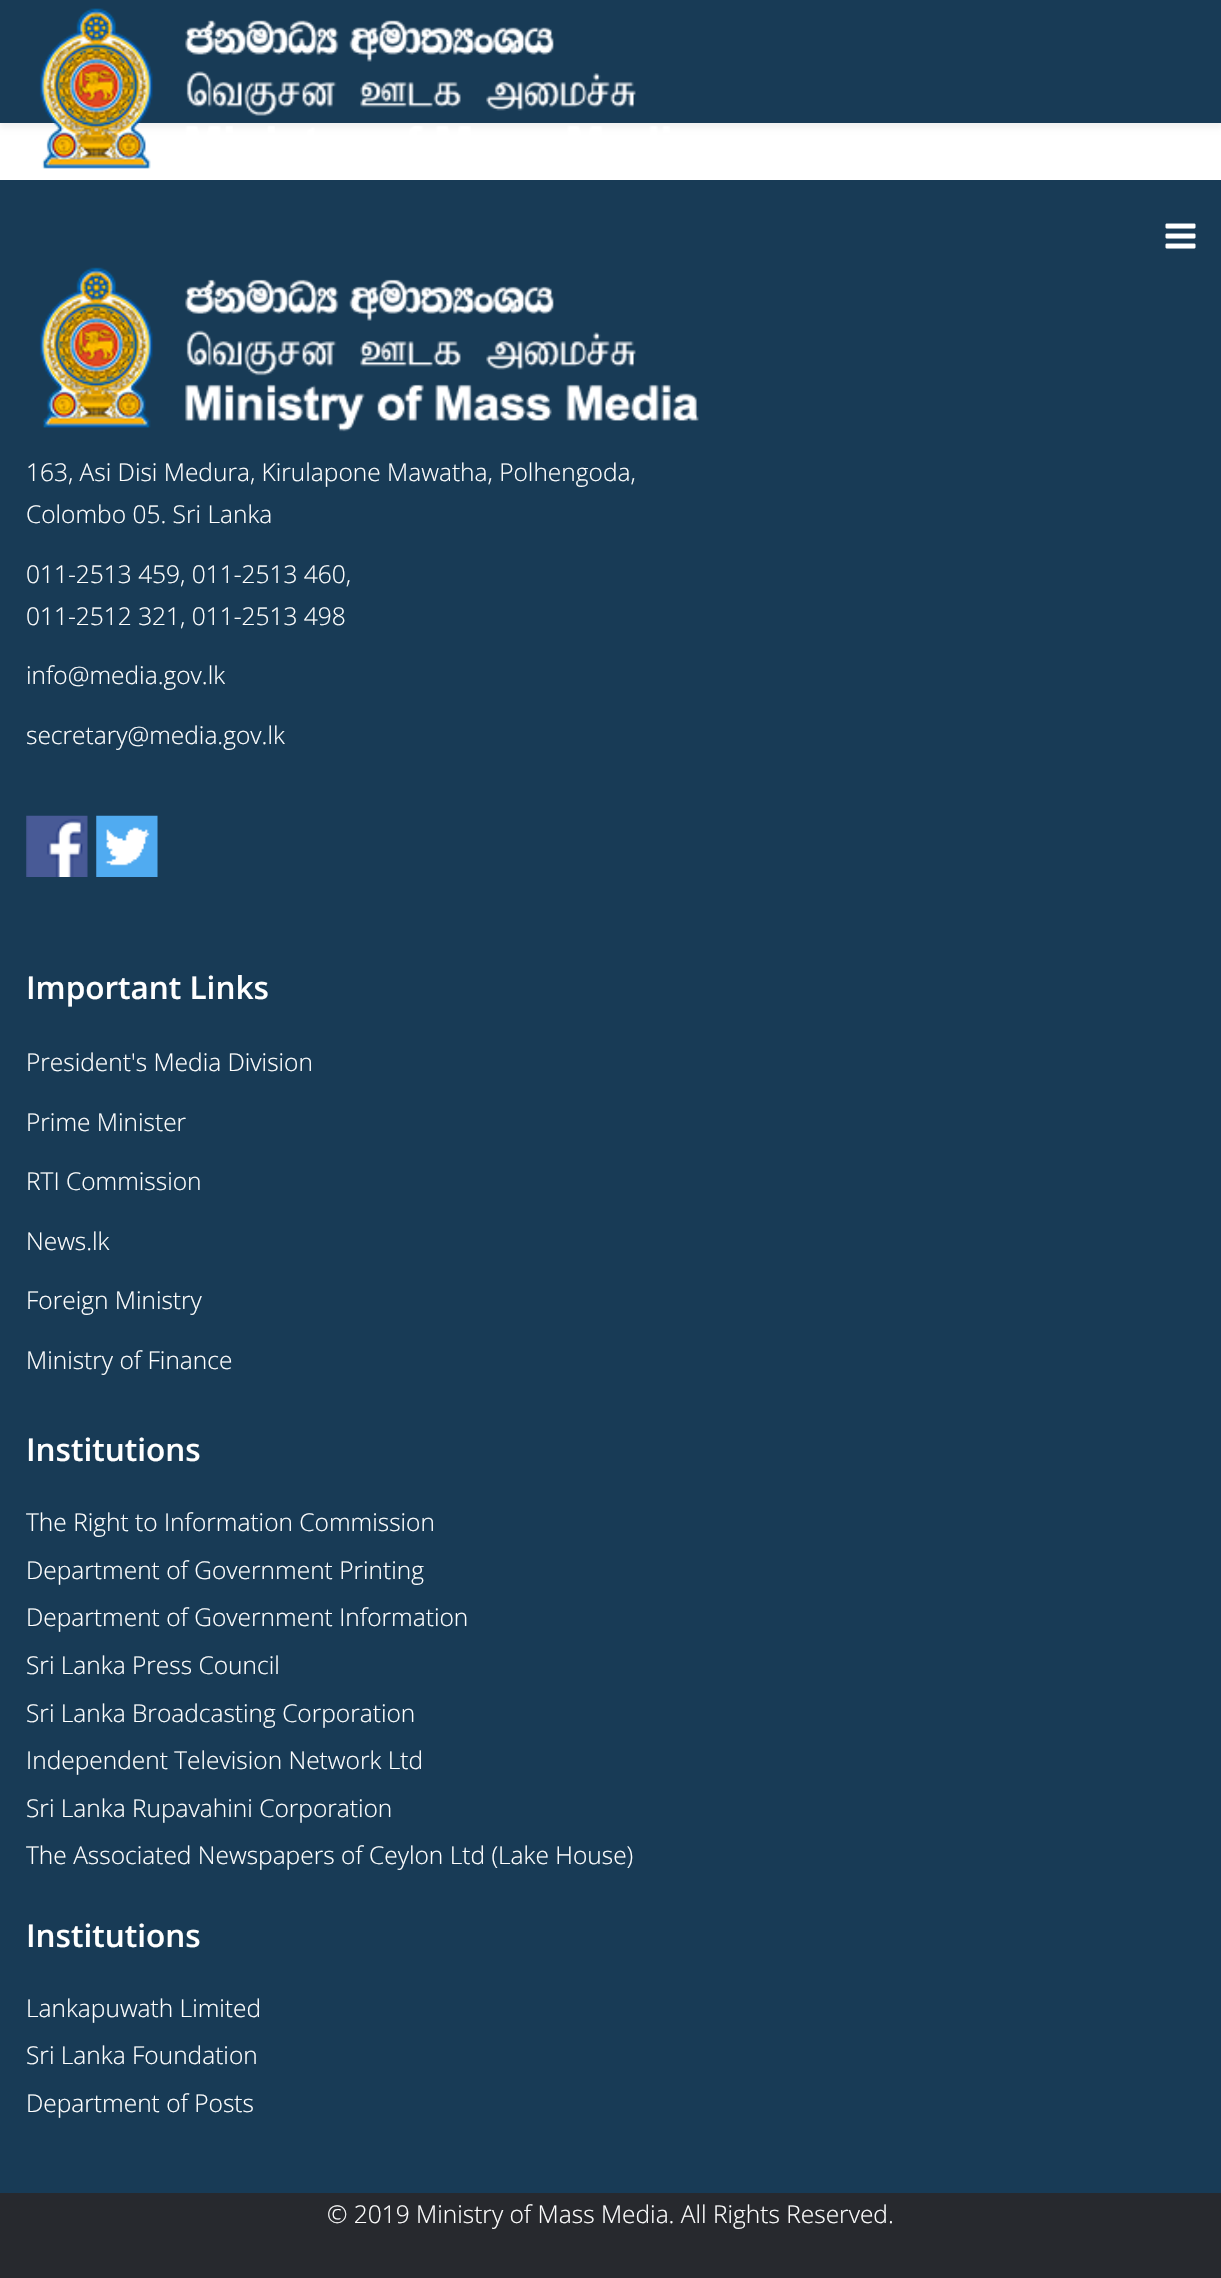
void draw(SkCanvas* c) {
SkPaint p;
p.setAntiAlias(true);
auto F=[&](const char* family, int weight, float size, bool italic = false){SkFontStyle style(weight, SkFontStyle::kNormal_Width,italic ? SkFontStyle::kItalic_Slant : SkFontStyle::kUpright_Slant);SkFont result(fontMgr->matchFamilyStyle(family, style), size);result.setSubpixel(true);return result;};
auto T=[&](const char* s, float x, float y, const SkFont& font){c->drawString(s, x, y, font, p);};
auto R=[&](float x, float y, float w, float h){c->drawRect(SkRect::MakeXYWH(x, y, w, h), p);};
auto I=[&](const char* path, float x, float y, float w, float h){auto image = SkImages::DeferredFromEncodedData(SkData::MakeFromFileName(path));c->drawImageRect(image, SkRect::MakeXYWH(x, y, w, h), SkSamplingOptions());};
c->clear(0xffffffff);
p.setColor(0x0d000000);
p.setMaskFilter(SkMaskFilter::MakeBlur(kNormal_SkBlurStyle, 2.5));
c->drawRect(SkRect::MakeXYWH(0,5,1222,123),p);
p.setMaskFilter(nullptr);
p.setColor(0xff183b56);
R(0,0,1221,123);
I("1.png",39,8,631,161);
R(0,180,1221,2013);
I("2.png",1165,223,31,26);
I("3.png",39,267,660,165);
auto f1 = F("Open Sans",300,24.5);
p.setColor(0xffffffff);
T("163, Asi Disi Medura, Kirulapone Mawatha, Polhengoda,",26,481,f1);
T("Colombo 05. Sri Lanka",26,523,f1);
T("011-2513 459, 011-2513 460,",26,583,f1);
T("011-2512 321, 011-2513 498",26,625,f1);
T("info@media.gov.lk",26,684,f1);
T("secretary@media.gov.lk",26,744,f1);
I("4.png",26,815,62,62);
I("5.png",96,815,62,62);
auto f2 = F("Open Sans",600,31.5);
T("Important Links",26,999,f2);
T("President's Media Division",26,1071,f1);
T("Prime Minister",26,1131,f1);
T("RTI Commission",26,1190,f1);
T("News.lk",26,1250,f1);
T("Foreign Ministry",26,1309,f1);
T("Ministry of Finance",26,1369,f1);
T("Institutions",26,1461,f2);
T("The Right to Information Commission",26,1531,f1);
T("Department of Government Printing",26,1579,f1);
T("Department of Government Information",26,1626,f1);
T("Sri Lanka Press Council",26,1674,f1);
T("Sri Lanka Broadcasting Corporation",26,1722,f1);
T("Independent Television Network Ltd",26,1769,f1);
T("Sri Lanka Rupavahini Corporation",26,1817,f1);
T("The Associated Newspapers of Ceylon Ltd (Lake House)",26,1864,f1);
T("Institutions",26,1947,f2);
T("Lankapuwath Limited",26,2017,f1);
T("Sri Lanka Foundation",26,2064,f1);
T("Department of Posts",26,2112,f1);
p.setColor(0xff27292e);
R(0,2193,1221,85);
p.setColor(0xffffffff);
T("© 2019 Ministry of Mass Media. All Rights Reserved.",327,2223,f1);
}
